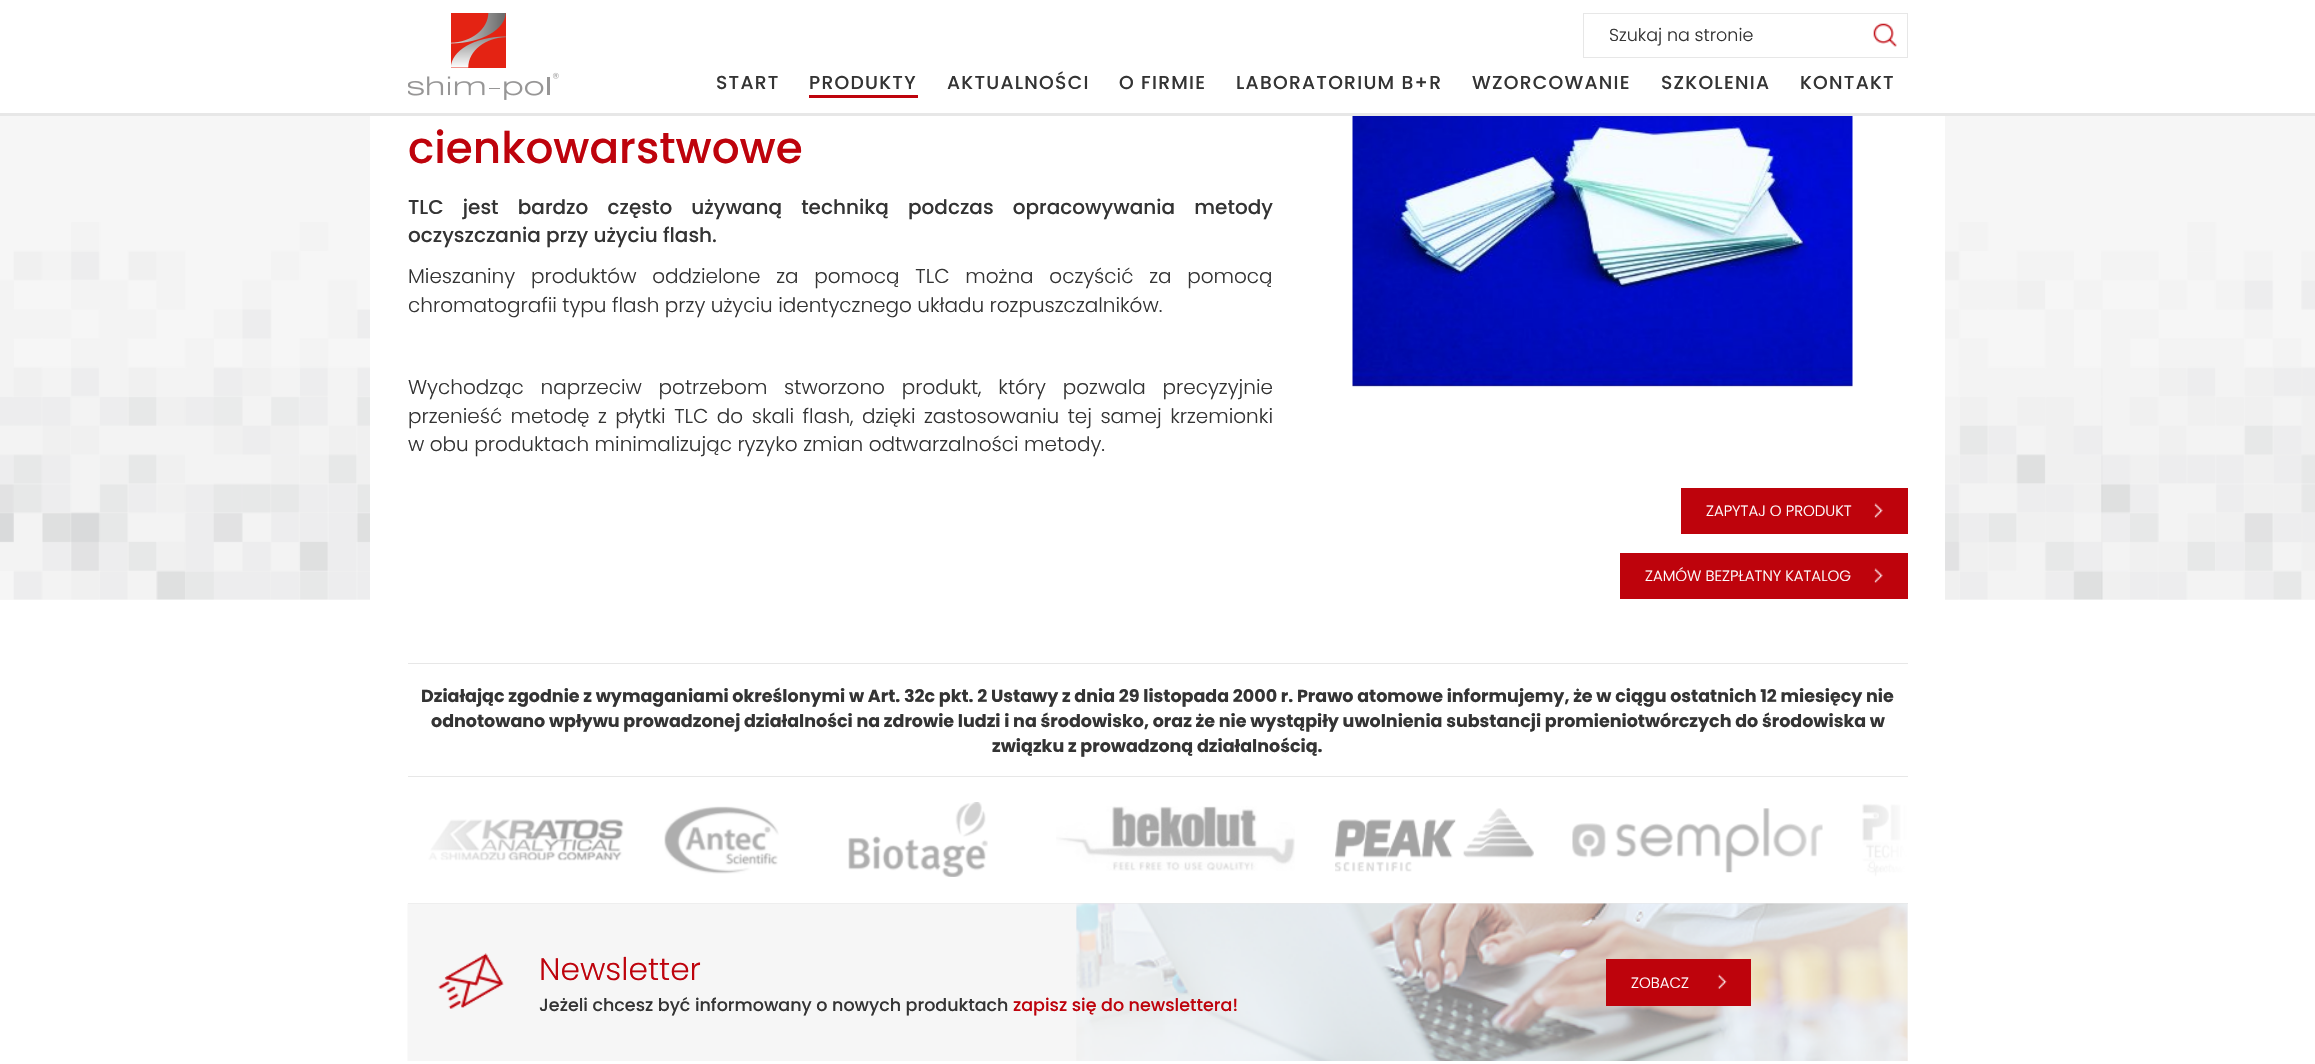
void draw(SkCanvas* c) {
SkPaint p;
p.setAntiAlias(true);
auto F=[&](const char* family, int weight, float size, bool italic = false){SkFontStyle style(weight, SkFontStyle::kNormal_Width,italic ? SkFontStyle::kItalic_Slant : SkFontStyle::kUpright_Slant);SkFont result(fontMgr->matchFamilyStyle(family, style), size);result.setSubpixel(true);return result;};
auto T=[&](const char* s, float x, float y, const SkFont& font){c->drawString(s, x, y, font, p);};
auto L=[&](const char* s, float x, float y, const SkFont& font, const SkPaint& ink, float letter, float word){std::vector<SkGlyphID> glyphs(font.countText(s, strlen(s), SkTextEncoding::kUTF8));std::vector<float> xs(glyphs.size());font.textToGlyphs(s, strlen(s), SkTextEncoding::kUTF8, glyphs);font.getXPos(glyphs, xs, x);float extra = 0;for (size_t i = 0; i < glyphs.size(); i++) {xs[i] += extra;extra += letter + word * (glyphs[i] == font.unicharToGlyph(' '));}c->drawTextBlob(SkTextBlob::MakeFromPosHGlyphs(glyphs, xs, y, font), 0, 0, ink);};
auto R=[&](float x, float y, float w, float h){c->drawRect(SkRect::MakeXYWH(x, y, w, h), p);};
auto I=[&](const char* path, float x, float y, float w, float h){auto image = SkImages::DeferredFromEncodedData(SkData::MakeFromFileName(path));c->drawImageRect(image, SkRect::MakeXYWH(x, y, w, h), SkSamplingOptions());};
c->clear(0xffffffff);
p.setColor(0xffe7e7e7);
R(0,113,2315,3);
I("1.png",408,13,151,87);
p.setStroke(true);
p.setStrokeWidth(1);
c->drawRect(SkRect::MakeXYWH(1583.5,13.5,324,44),p);
auto f1 = F("Poppins",300,17.5);
p.setStroke(false);
p.setColor(0xff343434);
T("Szukaj na stronie",1609,41,f1);
I("2.png",1873,23,24,24);
auto f2 = F("Poppins",500,18.75);
L("START",716,89,f2,p,1.25,0);
L("PRODUKTY",809,89,f2,p,1.25,0);
p.setColor(0xffbe030c);
R(809,95,109,3);
p.setColor(0xff343434);
L("AKTUALNOŚCI",947,89,f2,p,1.25,0);
L("O FIRMIE",1119,89,f2,p,1.25,0);
L("LABORATORIUM B+R",1236,89,f2,p,1.25,0);
L("WZORCOWANIE",1472,89,f2,p,1.25,0);
L("SZKOLENIA",1661,89,f2,p,1.25,0);
L("KONTAKT",1800,89,f2,p,1.25,0);
I("3.png",0,116,2315,484);
p.setColor(0xffffffff);
R(370,116,1575,484);
auto f3 = F("Poppins",500,43.75);
p.setColor(0xffbe030c);
T("cienkowarstwowe",408,163,f3);
auto f4 = F("Poppins",500,20);
p.setColor(0xff343434);
L("TLC jest bardzo często używaną techniką podczas opracowywania metody",408,214,f4,p,0,14);
T("oczyszczania przy użyciu flash.",408,242,f4);
auto f5 = F("Poppins",300,20);
L("Mieszaniny produktów oddzielone za pomocą TLC można oczyścić za pomocą",408,283,f5,p,0,10.25);
T("chromatografii typu flash przy użyciu identycznego układu rozpuszczalników.",408,312,f5);
L("Wychodząc naprzeciw potrzebom stworzono produkt, który pozwala precyzyjnie",408,394,f5,p,0,11.25);
L("przenieść metodę z płytki TLC do skali flash, dzięki zastosowaniu tej samej krzemionki",408,423,f5,p,0,3);
T("w obu produktach minimalizując ryzyko zmian odtwarzalności metody.",408,451,f5);
I("4.png",1352,116,501,273);
p.setColor(0xffbe030c);
R(1681,488,227,46);
I("5.png",1874,503,9,15);
auto f6 = F("Poppins",300,15);
p.setColor(0xffffffff);
T("ZAPYTAJ O PRODUKT",1706,516,f6);
p.setColor(0xffbe030c);
R(1620,553,288,46);
I("5.png",1874,568,9,15);
p.setColor(0xffffffff);
T("ZAMÓW BEZPŁATNY KATALOG",1645,581,f6);
p.setColor(0xffe7e7e7);
R(408,663,1500,1);
auto f7 = F("Poppins",700,17.5);
p.setColor(0xff343434);
T("Działając zgodnie z wymaganiami określonymi w Art. 32c pkt. 2 Ustawy z dnia 29 listopada 2000 r. Prawo atomowe informujemy, że w ciągu ostatnich 12 miesięcy nie",421,702,f7);
T("odnotowano wpływu prowadzonej działalności na zdrowie ludzi i na środowisko, oraz że nie wystąpiły uwolnienia substancji promieniotwórczych do środowiska w",431,727,f7);
T("związku z prowadzoną działalnością.",992,752,f7);
p.setColor(0xffe7e7e7);
R(408,776,1500,1);
R(408,903,1500,1);
I("6.png",428,819,196,42);
I("7.png",664,806,115,68);
I("8.png",848,802,140,75);
I("9.png",1056,806,239,65);
I("10.png",1335,808,199,64);
I("11.png",1572,808,251,65);
I("12.png",1862,803,45,74);
{
const SkColor colors[] = {0xffffffff,0x00ffffff};
const float stops[] = {0,1};
const SkPoint ends[] = {{408,840}, {558,840}};
p.setShader(SkGradientShader::MakeLinear(ends, colors, stops, 2, SkTileMode::kClamp));
p.setAlpha(255);
}
R(428,819,126,42);
{
const SkColor colors[] = {0x00ffffff,0xffffffff};
const float stops[] = {0,1};
const SkPoint ends[] = {{1758,840}, {1908,840}};
p.setShader(SkGradientShader::MakeLinear(ends, colors, stops, 2, SkTileMode::kClamp));
p.setAlpha(255);
}
R(1765,803,142,74);
p.setShader(nullptr);
p.setColor(0xfff6f6f6);
R(1907,904,1,157);
I("13.png",407,903,1501,158);
I("14.png",438,953,66,56);
auto f8 = F("Poppins",300,31.25);
p.setColor(0xffbe030c);
T("Newsletter",539,980,f8);
R(1606,959,145,47);
I("15.png",1717,974,10,15);
p.setColor(0xffffffff);
T("ZOBACZ",1631,988,f6);
auto f9 = F("Poppins",500,17.5);
p.setColor(0xff343434);
T("Jeżeli chcesz być informowany o nowych produktach",539,1011,f9);
p.setColor(0xffbe030c);
T("zapisz się do newslettera!",1013,1011,f9);
}
